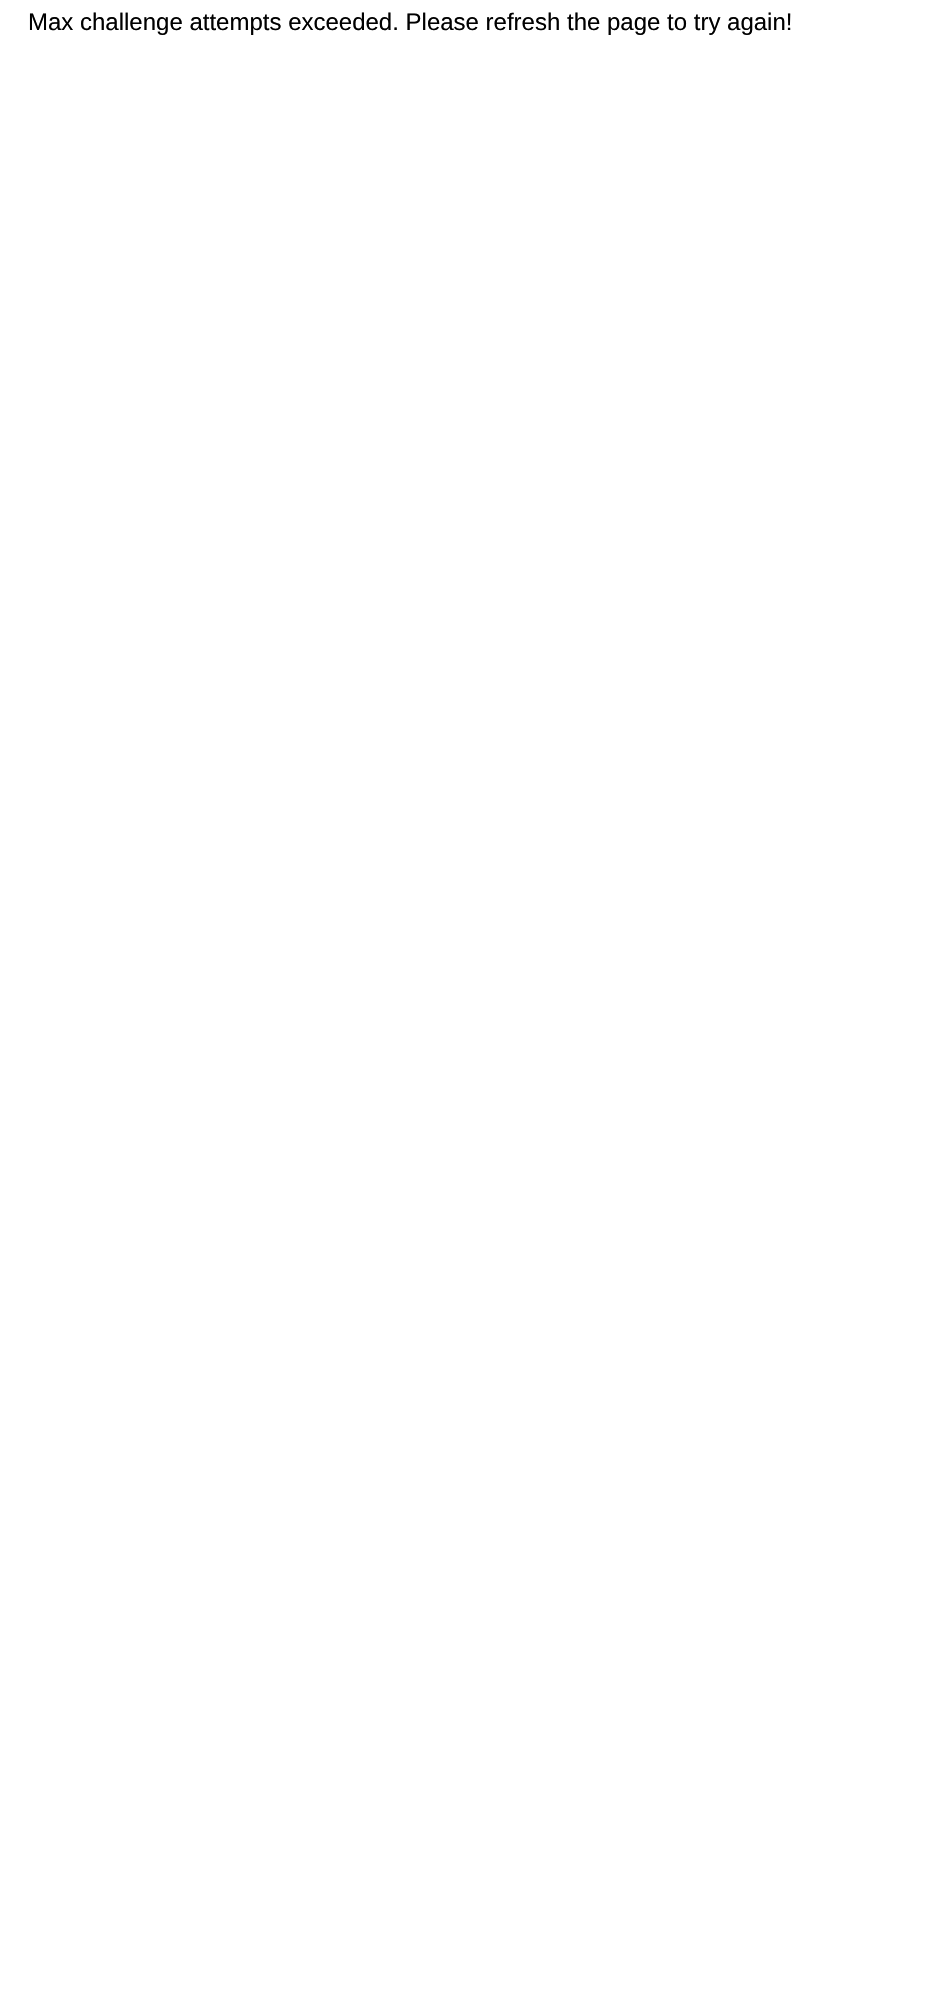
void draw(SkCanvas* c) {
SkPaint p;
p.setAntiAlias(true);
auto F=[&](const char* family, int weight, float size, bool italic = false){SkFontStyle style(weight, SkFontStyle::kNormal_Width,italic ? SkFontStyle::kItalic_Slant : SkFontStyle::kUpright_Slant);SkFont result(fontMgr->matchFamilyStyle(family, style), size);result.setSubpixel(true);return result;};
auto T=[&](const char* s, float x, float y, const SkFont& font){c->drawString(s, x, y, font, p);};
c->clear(0xffffffff);
auto f1 = F("Liberation Sans",400,24);
p.setColor(0xff000000);
T("Max challenge attempts exceeded. Please refresh the page to try again!",28,30,f1);
}
